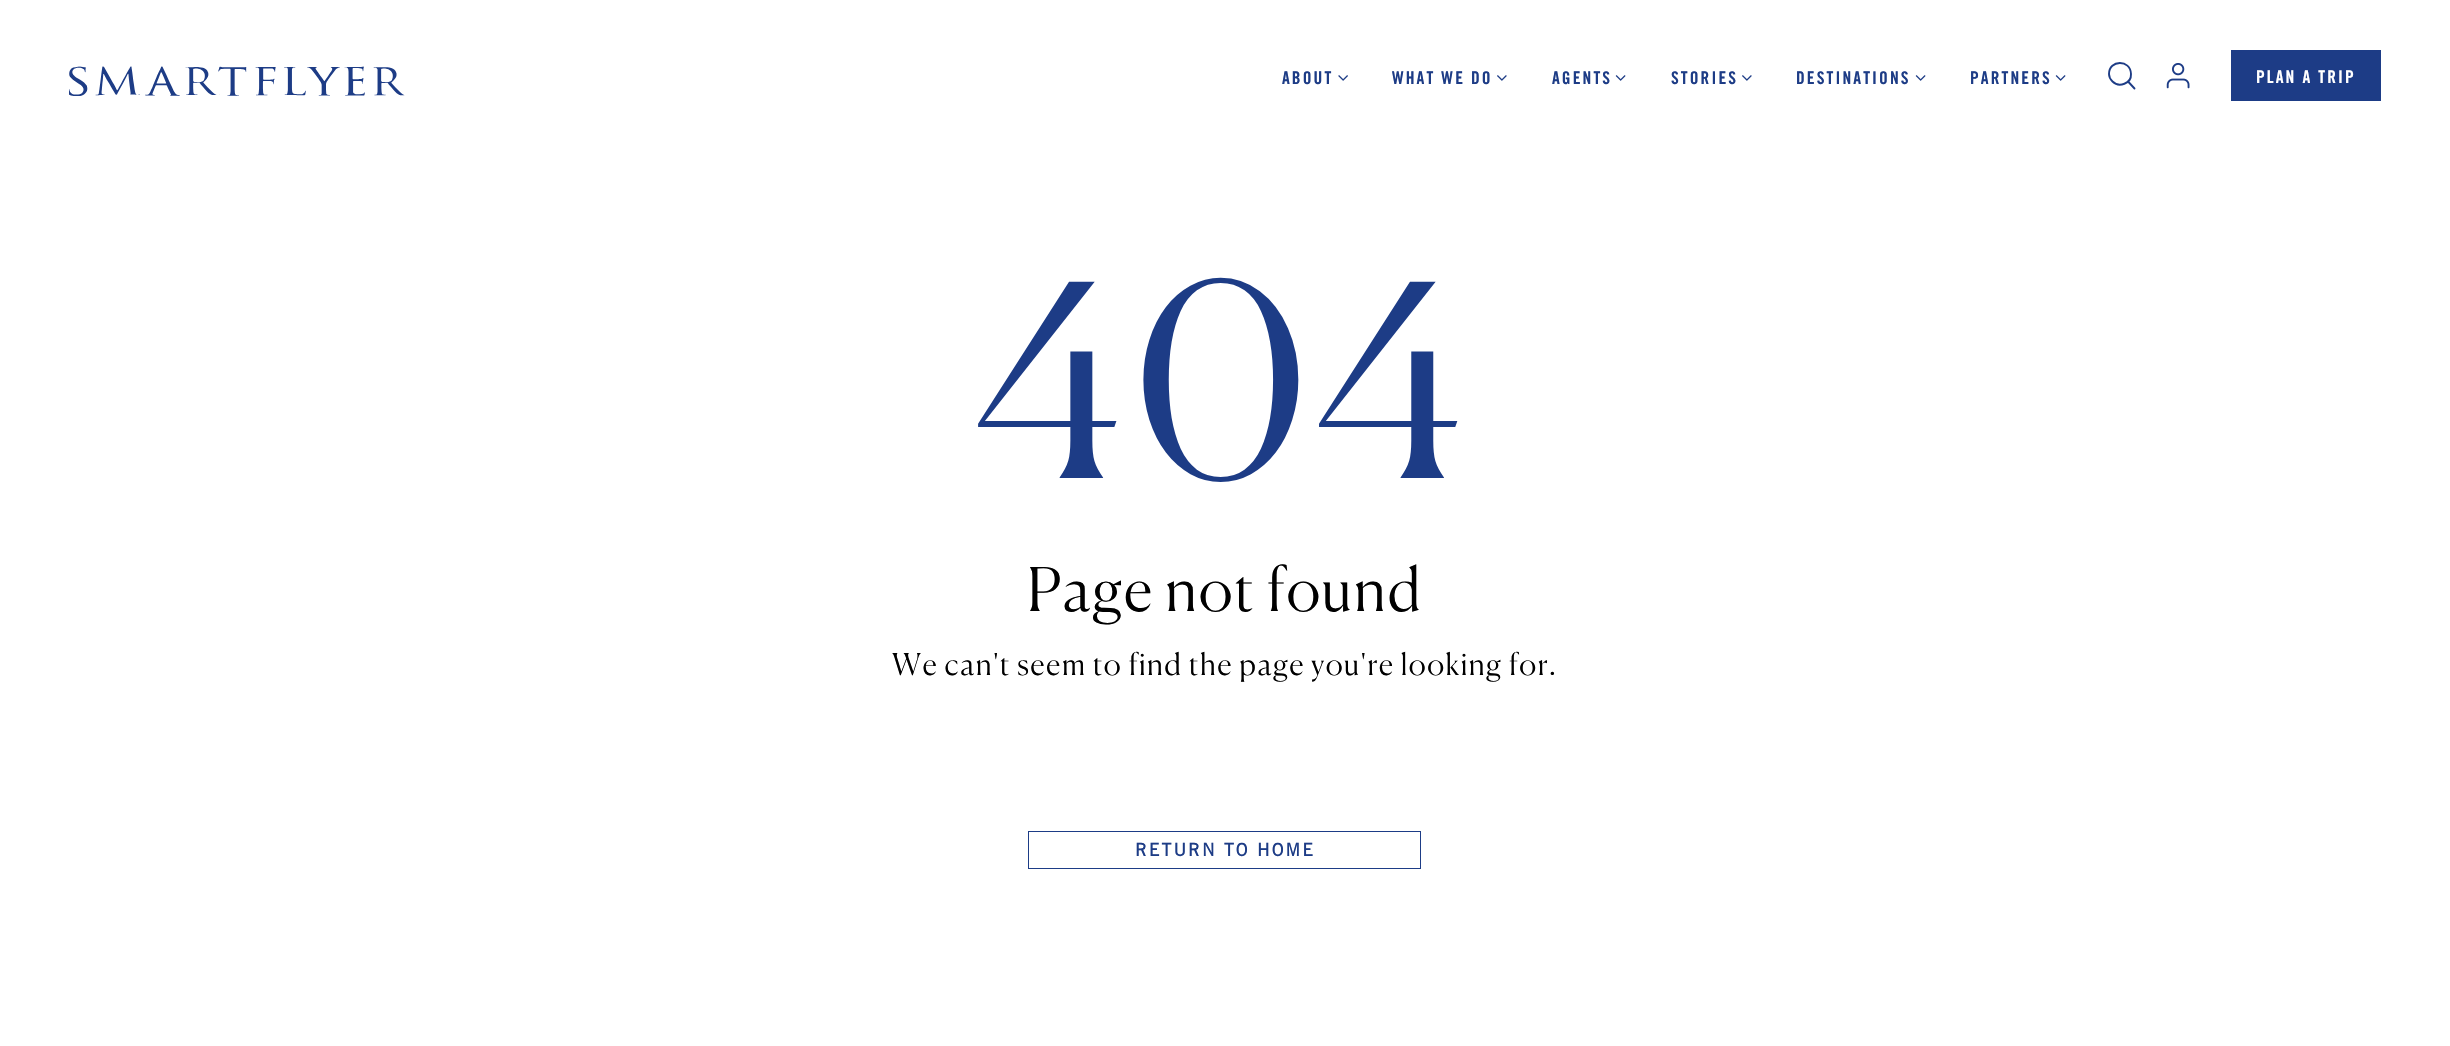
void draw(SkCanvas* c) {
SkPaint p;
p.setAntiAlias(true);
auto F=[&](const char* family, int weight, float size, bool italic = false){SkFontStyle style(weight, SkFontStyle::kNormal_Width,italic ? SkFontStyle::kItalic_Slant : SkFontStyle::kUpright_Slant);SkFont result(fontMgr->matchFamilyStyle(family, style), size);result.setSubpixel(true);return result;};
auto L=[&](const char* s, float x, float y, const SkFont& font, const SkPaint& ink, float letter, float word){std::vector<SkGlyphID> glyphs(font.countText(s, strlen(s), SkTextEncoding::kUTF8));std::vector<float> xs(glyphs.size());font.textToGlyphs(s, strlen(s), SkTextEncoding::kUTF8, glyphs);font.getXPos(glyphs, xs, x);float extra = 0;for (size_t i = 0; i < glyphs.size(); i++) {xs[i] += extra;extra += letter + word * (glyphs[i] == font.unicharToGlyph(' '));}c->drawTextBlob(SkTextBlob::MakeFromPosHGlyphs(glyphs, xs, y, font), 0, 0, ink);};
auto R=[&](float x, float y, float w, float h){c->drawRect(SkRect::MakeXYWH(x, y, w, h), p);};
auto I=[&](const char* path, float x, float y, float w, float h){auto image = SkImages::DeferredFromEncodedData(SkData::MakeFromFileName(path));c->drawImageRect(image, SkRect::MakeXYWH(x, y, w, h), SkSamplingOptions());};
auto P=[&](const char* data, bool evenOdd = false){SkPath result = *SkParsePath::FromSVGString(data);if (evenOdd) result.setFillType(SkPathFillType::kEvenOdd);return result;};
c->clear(0xffffffff);
I("1.png",69,66,336,30);
auto f1 = F("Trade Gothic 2",700,17.5);
p.setColor(0xff1d3c86);
L("ABOUT",1282,84,f1,p,2.1,0);
I("2.png",1338,75,10,6);
L("WHAT WE DO",1392,84,f1,p,2.1,0);
I("3.png",1497,75,10,6);
L("AGENTS",1552,84,f1,p,2.1,0);
I("4.png",1615,75,11,6);
L("STORIES",1671,84,f1,p,2.1,0);
I("3.png",1742,75,10,6);
L("DESTINATIONS",1796,84,f1,p,2.1,0);
I("4.png",1915,75,11,6);
L("PARTNERS",1970,84,f1,p,2.1,0);
I("4.png",2055,75,11,6);
p.setStroke(true);
p.setStrokeWidth(1.9);
p.setStrokeCap(SkPaint::kRound_Cap);
p.setStrokeJoin(SkPaint::kRound_Join);
c->drawPath(P("M2128.5 82l6 6.5zm-19.5-8c0 2.5 1.5 5.5 3.5 7.5c6.5 6.5 19 2 18.5-7.5c-.5-15-22-14.5-22 0z"),p);
I("5.png",2166,63,24,26);
p.setStroke(false);
R(2231,50,150,51);
p.setColor(0xffffffff);
L("PLAN A TRIP",2256,83,f1,p,2.1,0);
auto f2 = F("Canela",300,268);
p.setColor(0xff1d3c86);
L("404",976,478,f2,p,8,0);
auto f3 = F("Canela",300,60);
p.setColor(0xff000000);
L("Page not found",1027,611,f3,p,1.75,0);
auto f4 = F("Canela",300,30);
L("We can't seem to find the page you're looking for.",892,675,f4,p,1.5,0);
p.setStroke(true);
p.setStrokeWidth(1);
p.setStrokeCap(SkPaint::kButt_Cap);
p.setStrokeJoin(SkPaint::kMiter_Join);
p.setColor(0xff1d3c86);
c->drawRect(SkRect::MakeXYWH(1028.5,831.5,392,37),p);
auto f5 = F("Trade Gothic",700,17.5);
p.setStroke(false);
L("RETURN TO HOME",1135,856,f5,p,2.1,0);
}
